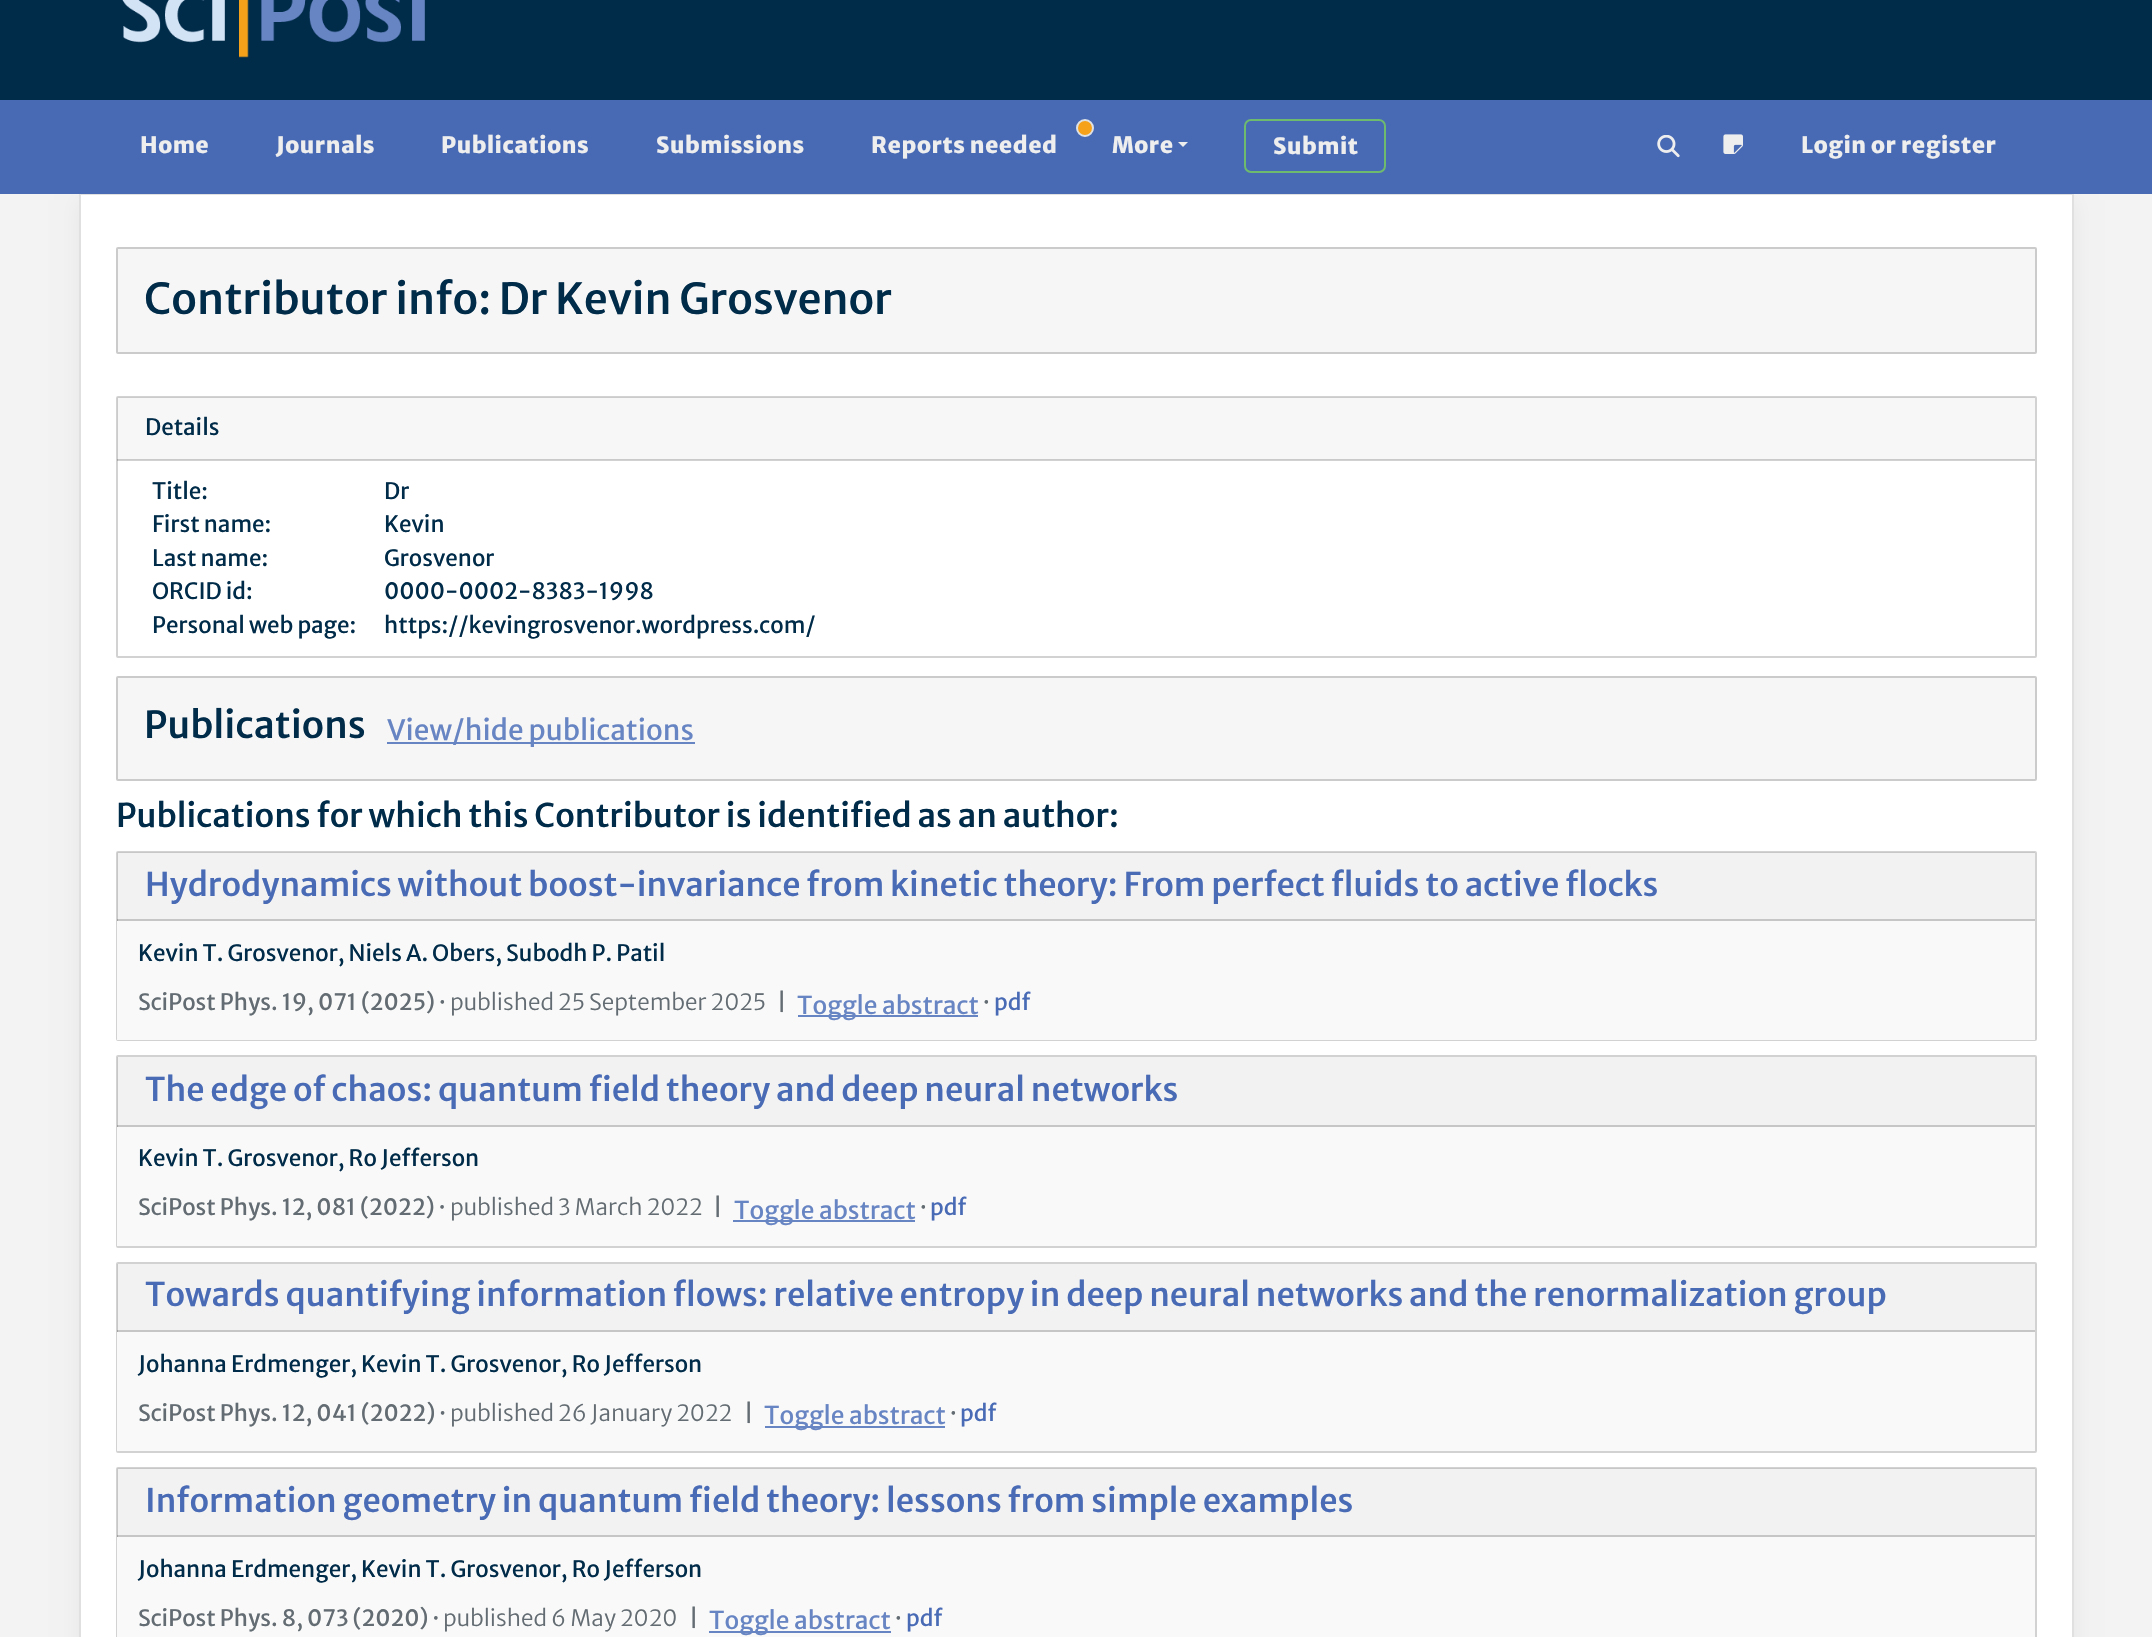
void draw(SkCanvas* c) {
SkPaint p;
p.setAntiAlias(true);
auto F=[&](const char* family, int weight, float size, bool italic = false){SkFontStyle style(weight, SkFontStyle::kNormal_Width,italic ? SkFontStyle::kItalic_Slant : SkFontStyle::kUpright_Slant);SkFont result(fontMgr->matchFamilyStyle(family, style), size);result.setSubpixel(true);return result;};
auto T=[&](const char* s, float x, float y, const SkFont& font){c->drawString(s, x, y, font, p);};
auto L=[&](const char* s, float x, float y, const SkFont& font, const SkPaint& ink, float letter, float word){std::vector<SkGlyphID> glyphs(font.countText(s, strlen(s), SkTextEncoding::kUTF8));std::vector<float> xs(glyphs.size());font.textToGlyphs(s, strlen(s), SkTextEncoding::kUTF8, glyphs);font.getXPos(glyphs, xs, x);float extra = 0;for (size_t i = 0; i < glyphs.size(); i++) {xs[i] += extra;extra += letter + word * (glyphs[i] == font.unicharToGlyph(' '));}c->drawTextBlob(SkTextBlob::MakeFromPosHGlyphs(glyphs, xs, y, font), 0, 0, ink);};
auto R=[&](float x, float y, float w, float h){c->drawRect(SkRect::MakeXYWH(x, y, w, h), p);};
auto I=[&](const char* path, float x, float y, float w, float h){auto image = SkImages::DeferredFromEncodedData(SkData::MakeFromFileName(path));c->drawImageRect(image, SkRect::MakeXYWH(x, y, w, h), SkSamplingOptions());};
auto P=[&](const char* data, bool evenOdd = false){SkPath result = *SkParsePath::FromSVGString(data);if (evenOdd) result.setFillType(SkPathFillType::kEvenOdd);return result;};
c->clear(0xfff3f3f3);
p.setColor(0xff002b49);
R(0,0,2152,100);
I("1.png",122,0,303,58);
p.setColor(0x0d000000);
p.setMaskFilter(SkMaskFilter::MakeBlur(kNormal_SkBlurStyle, 10.5));
c->drawRect(SkRect::MakeXYWH(79,200,1995,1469),p);
p.setMaskFilter(nullptr);
p.setColor(0xffe0e0e0);
R(79,194,1995,1);
R(2072,193,2,1444);
R(79,193,2,1444);
p.setColor(0xff4869b4);
R(0,100,2152,94);
auto f1 = F("Merriweather Sans",800,22.4);
p.setColor(0xffeeeeee);
L("Home",140,153,f1,p,.5,0);
L("Journals",276,153,f1,p,.5,0);
L("Publications",441,153,f1,p,.5,0);
L("Submissions",656,153,f1,p,.5,0);
p.setColor(0xfff6a11a);
c->drawCircle(1085,128,8,p);
p.setStroke(true);
p.setStrokeWidth(2);
p.setColor(0xffdee2e6);
c->drawCircle(1085,128,8,p);
p.setStroke(false);
p.setColor(0xffeeeeee);
L("Reports needed",871,153,f1,p,.5,0);
L("More",1112,153,f1,p,.5,0);
c->drawPath(P("M1178 142h10l-5 5z"),p);
p.setStroke(true);
p.setColor(0xff6ebb6e);
c->drawRoundRect(SkRect::MakeXYWH(1245,120,140,52),6,6,p);
p.setStroke(false);
p.setColor(0xffeeeeee);
L("Submit",1273,154,f1,p,.5,0);
I("2.png",1657,135,23,23);
I("3.png",1723,134,20,20);
L("Login or register",1801,153,f1,p,.5,0);
p.setColor(0xffffffff);
R(81,195,1991,1442);
p.setColor(0xfff6f6f6);
c->drawRoundRect(SkRect::MakeXYWH(117,248,1919,105),1,1,p);
p.setStroke(true);
p.setColor(0xffcbcbcb);
c->drawRoundRect(SkRect::MakeXYWH(117,248,1919,105),1,1,p);
auto f2 = F("Merriweather Sans",500,42.6);
p.setStroke(false);
p.setColor(0xff002b49);
T("Contributor info: Dr Kevin Grosvenor",144,314,f2);
p.setStroke(true);
p.setColor(0xffd2d2d2);
c->drawRoundRect(SkRect::MakeXYWH(117,397,1919,260),1,1,p);
p.setStroke(false);
p.setColor(0x08000000);
R(117,397,1918,63);
p.setColor(0x2e000000);
R(117,459,1918,2);
auto f3 = F("Merriweather Sans",400,22.4);
p.setColor(0xff002b49);
T("Details",145,435,f3);
T("Title:",152,499,f3);
T("Dr",384,499,f3);
T("First name:",152,532,f3);
T("Kevin",384,532,f3);
T("Last name:",152,566,f3);
T("Grosvenor",384,566,f3);
T("ORCID id:",152,599,f3);
T("0000-0002-8383-1998",384,599,f3);
T("Personal web page:",152,633,f3);
T("https://kevingrosvenor.wordpress.com/",384,633,f3);
p.setColor(0xfff6f6f6);
c->drawRoundRect(SkRect::MakeXYWH(117,677,1919,103),1,1,p);
p.setStroke(true);
p.setColor(0xffcbcbcb);
c->drawRoundRect(SkRect::MakeXYWH(117,677,1919,103),1,1,p);
auto f4 = F("Merriweather Sans",500,37);
p.setStroke(false);
p.setColor(0xff002b49);
T("Publications",144,738,f4);
p.setColor(0xff6885c3);
R(387,742,308,2);
auto f5 = F("Merriweather Sans",400,28);
T("View/hide publications",387,740,f5);
auto f6 = F("Merriweather Sans",500,32.48);
p.setColor(0xff002b49);
T("Publications for which this Contributor is identified as an author:",116,827,f6);
p.setStroke(true);
p.setColor(0xffd2d2d2);
c->drawRoundRect(SkRect::MakeXYWH(117,852,1919,188),1,1,p);
p.setStroke(false);
p.setColor(0x0d000000);
R(117,852,1918,69);
p.setColor(0x2e000000);
R(117,919,1918,2);
p.setColor(0xff496bb6);
T("Hydrodynamics without boost-invariance from kinetic theory: From perfect fluids to active flocks",145,896,f6);
p.setColor(0xfff9f9f9);
R(117,921,1918,119);
p.setColor(0xff002b49);
T("Kevin T. Grosvenor, Niels A. Obers, Subodh P. Patil",138,961,f3);
p.setColor(0xff636c72);
T("SciPost Phys. 19, 071 (2025) ·",138,1010,f3);
auto f7 = F("Merriweather Sans",300,22.4);
T("published 25 September 2025",450,1010,f7);
T("|",777,1010,f3);
p.setColor(0xff6885c3);
R(798,1015,180,2);
auto f8 = F("Merriweather Sans",400,24.5);
T("Toggle abstract",797,1014,f8);
p.setColor(0xff636c72);
T("·",983,1010,f3);
p.setColor(0xff496bb6);
T("pdf",994,1010,f3);
p.setStroke(true);
p.setColor(0xffd2d2d2);
c->drawRoundRect(SkRect::MakeXYWH(117,1056,1919,191),1,1,p);
p.setStroke(false);
p.setColor(0x0d000000);
R(117,1057,1918,70);
p.setColor(0x2e000000);
R(117,1125,1918,2);
p.setColor(0xff496bb6);
T("The edge of chaos: quantum field theory and deep neural networks",145,1101,f6);
p.setColor(0xfff9f9f9);
R(117,1127,1918,119);
p.setColor(0xff002b49);
T("Kevin T. Grosvenor, Ro Jefferson",138,1166,f3);
p.setColor(0xff636c72);
T("SciPost Phys. 12, 081 (2022) ·",138,1215,f3);
T("published 3 March 2022",450,1215,f7);
T("|",713,1215,f3);
p.setColor(0xff6885c3);
R(733,1220,182,2);
T("Toggle abstract",734,1219,f8);
p.setColor(0xff636c72);
T("·",920,1215,f3);
p.setColor(0xff496bb6);
T("pdf",930,1215,f3);
p.setStroke(true);
p.setColor(0xffd2d2d2);
c->drawRoundRect(SkRect::MakeXYWH(117,1263,1919,189),1,1,p);
p.setStroke(false);
p.setColor(0x0d000000);
R(117,1264,1918,68);
p.setColor(0x2e000000);
R(117,1330,1918,2);
p.setColor(0xff496bb6);
T("Towards quantifying information flows: relative entropy in deep neural networks and the renormalization group",145,1306,f6);
p.setColor(0xfff9f9f9);
R(117,1332,1918,119);
p.setColor(0xff002b49);
T("Johanna Erdmenger, Kevin T. Grosvenor, Ro Jefferson",138,1372,f3);
p.setColor(0xff636c72);
T("SciPost Phys. 12, 041 (2022) ·",138,1421,f3);
T("published 26 January 2022",450,1421,f7);
T("|",744,1421,f3);
p.setColor(0xff6885c3);
R(765,1426,180,2);
T("Toggle abstract",764,1424,f8);
p.setColor(0xff636c72);
T("·",950,1421,f3);
p.setColor(0xff496bb6);
T("pdf",960,1421,f3);
p.setStroke(true);
p.setColor(0xffd2d2d2);
c->drawRoundRect(SkRect::MakeXYWH(117,1468,1919,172),1,1,p);
p.setStroke(false);
p.setColor(0x0d000000);
R(117,1468,1918,69);
p.setColor(0x2e000000);
R(117,1535,1918,2);
p.setColor(0xff496bb6);
T("Information geometry in quantum field theory: lessons from simple examples",145,1512,f6);
p.setColor(0xfff9f9f9);
R(117,1537,1918,100);
p.setColor(0xff002b49);
T("Johanna Erdmenger, Kevin T. Grosvenor, Ro Jefferson",138,1577,f3);
p.setColor(0xff636c72);
T("SciPost Phys. 8, 073 (2020) ·",138,1626,f3);
T("published 6 May 2020",443,1626,f7);
T("|",689,1626,f3);
p.setColor(0xff6885c3);
R(709,1631,182,2);
T("Toggle abstract",709,1629,f8);
p.setColor(0xff636c72);
T("·",895,1626,f3);
p.setColor(0xff496bb6);
T("pdf",906,1626,f3);
}
